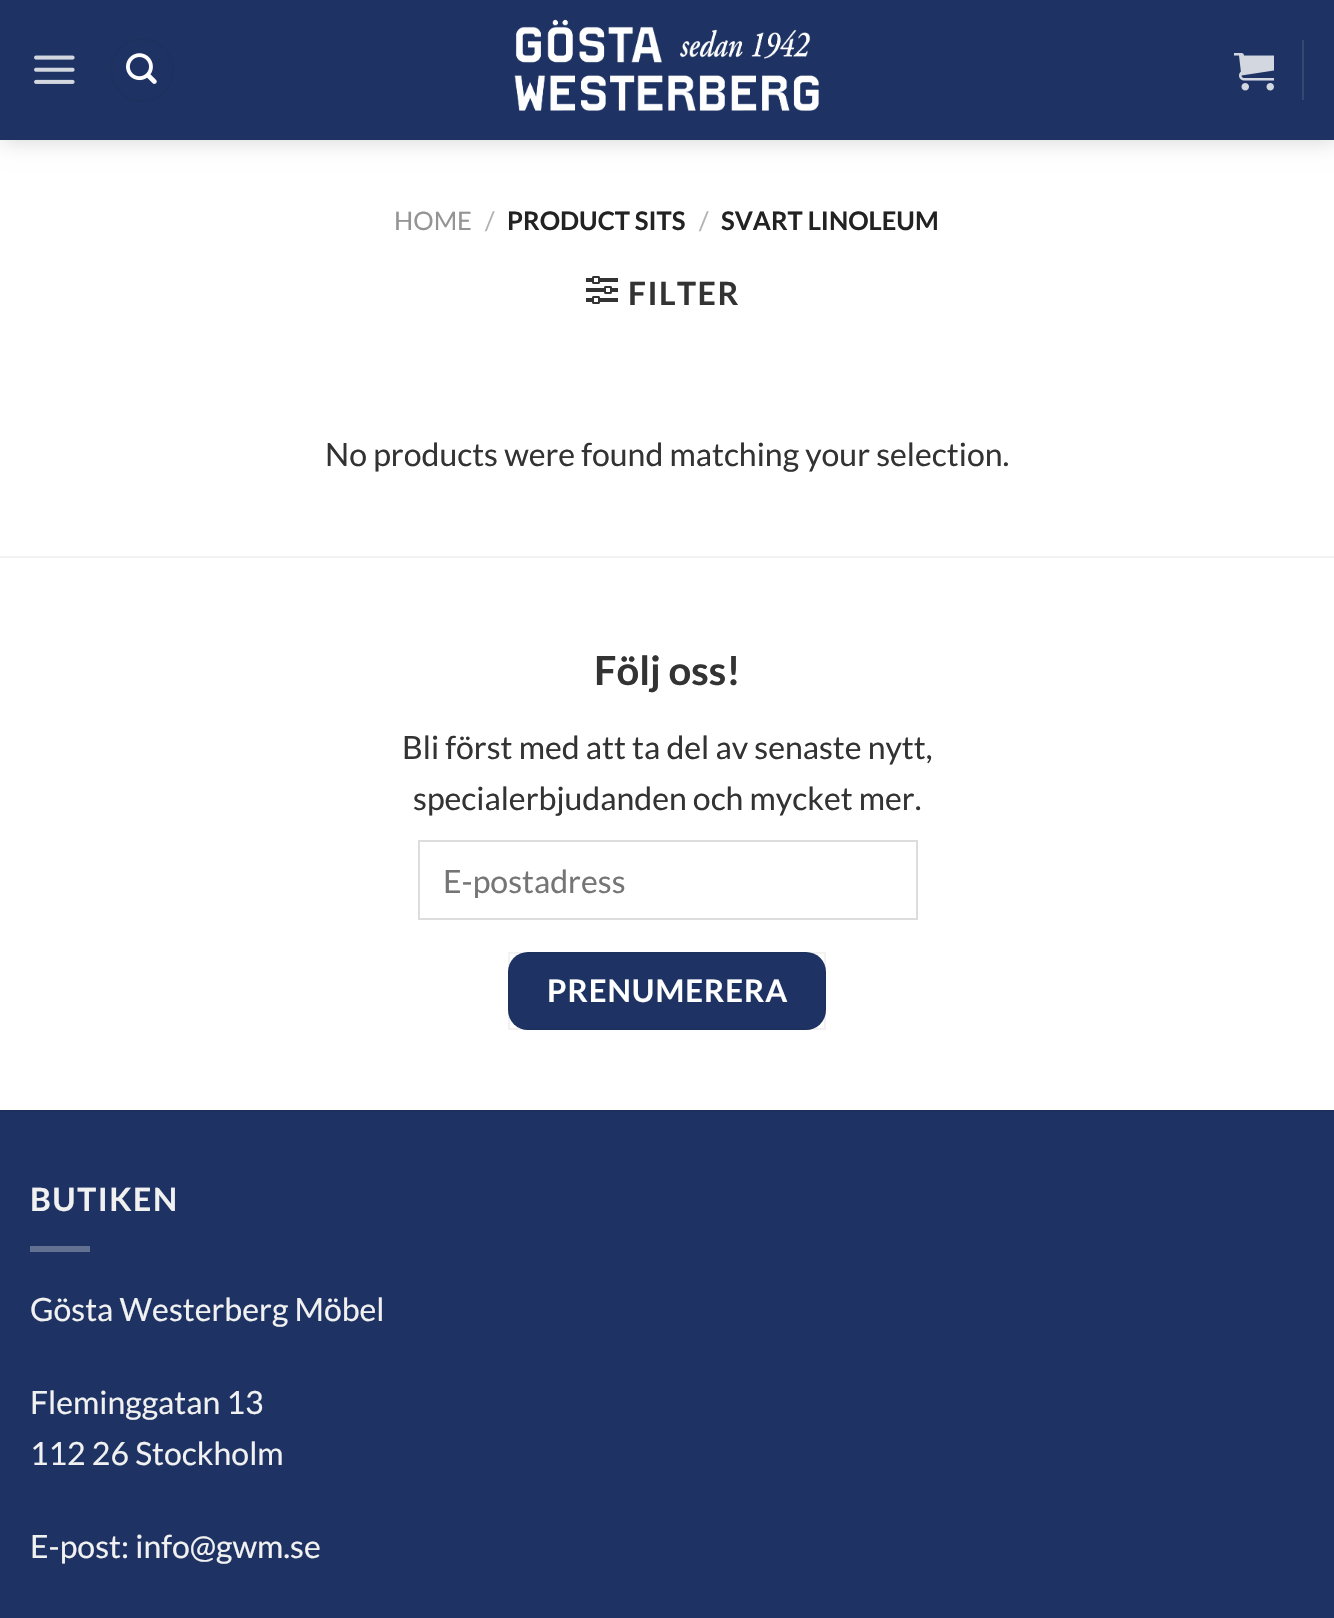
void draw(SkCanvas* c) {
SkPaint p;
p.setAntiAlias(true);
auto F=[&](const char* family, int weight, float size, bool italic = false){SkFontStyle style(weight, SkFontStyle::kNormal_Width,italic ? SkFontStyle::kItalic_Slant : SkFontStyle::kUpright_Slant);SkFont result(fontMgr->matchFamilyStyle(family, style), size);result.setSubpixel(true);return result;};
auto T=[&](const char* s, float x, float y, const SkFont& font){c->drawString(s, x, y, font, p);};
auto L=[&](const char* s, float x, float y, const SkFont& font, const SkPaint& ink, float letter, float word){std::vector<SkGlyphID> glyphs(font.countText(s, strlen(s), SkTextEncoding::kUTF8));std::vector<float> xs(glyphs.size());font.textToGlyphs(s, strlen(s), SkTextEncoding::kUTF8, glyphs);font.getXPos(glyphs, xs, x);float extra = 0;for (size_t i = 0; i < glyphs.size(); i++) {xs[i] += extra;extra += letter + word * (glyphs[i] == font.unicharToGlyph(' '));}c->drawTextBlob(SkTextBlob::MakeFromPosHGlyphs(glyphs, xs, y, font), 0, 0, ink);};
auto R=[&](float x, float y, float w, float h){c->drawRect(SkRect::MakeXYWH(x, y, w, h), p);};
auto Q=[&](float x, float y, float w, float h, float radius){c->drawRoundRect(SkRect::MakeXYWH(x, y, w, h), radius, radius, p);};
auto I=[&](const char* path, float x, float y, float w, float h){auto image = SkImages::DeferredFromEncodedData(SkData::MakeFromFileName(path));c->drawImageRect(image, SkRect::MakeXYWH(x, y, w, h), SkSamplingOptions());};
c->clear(0xffffffff);
p.setColor(0x26000000);
p.setMaskFilter(SkMaskFilter::MakeBlur(kNormal_SkBlurStyle, 10));
c->drawRect(SkRect::MakeXYWH(2,2,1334,140),p);
p.setMaskFilter(nullptr);
p.setColor(0xff1e3363);
R(0,0,1334,140);
I("1.png",34,55,41,29);
p.setStroke(true);
p.setStrokeWidth(2);
p.setColor(0xff1d305e);
c->drawCircle(142,70,31,p);
I("2.png",126,53,31,31);
I("3.png",514,19,305,92);
I("4.png",1234,53,40,38);
p.setStroke(false);
p.setColor(0xff354773);
R(1302,40,2,60);
auto f1 = F("Lato",400,25.5);
p.setColor(0xff949494);
T("HOME",394,230,f1);
p.setColor(0xffb2b2b2);
T("/",485,230,f1);
auto f2 = F("Lato",700,25.5);
p.setColor(0xff222222);
T("PRODUCT SITS",507,230,f2);
p.setColor(0xffb2b2b2);
T("/",699,230,f1);
p.setColor(0xff222222);
T("SVART LINOLEUM",721,230,f2);
I("5.png",586,276,32,28);
auto f3 = F("Lato",700,32);
p.setColor(0xff333333);
L("FILTER",628,305,f3,p,1.5,0);
auto f4 = F("Lato",400,32);
T("No products were found matching your selection.",325,466,f4);
p.setColor(0xfff2f2f2);
R(0,556,1334,2);
auto f5 = F("Lato",700,40);
p.setColor(0xff333333);
T("Följ oss!",594,685,f5);
T("Bli först med att ta del av senaste nytt,",402,759,f4);
T("specialerbjudanden och mycket mer.",413,810,f4);
p.setStroke(true);
p.setColor(0xffdddddd);
c->drawRect(SkRect::MakeXYWH(419,841,498,78),p);
c->save();
c->clipRect(SkRect::MakeXYWH(444,860,448,38));
p.setStroke(false);
p.setColor(0xff757575);
T("E-postadress",443,893,f4);
c->restore();
p.setColor(0xff1e3363);
Q(508,952,318,78,20);
p.setStroke(true);
p.setColor(0x0d000000);
c->drawRect(SkRect::MakeXYWH(509,953,316,76),p);
auto f6 = F("Lato",700,31);
p.setStroke(false);
p.setColor(0xffffffff);
L("PRENUMERERA",547,1002,f6,p,1,0);
p.setColor(0xff1e3363);
R(0,1112,1334,506);
p.setColor(0xff1d305e);
R(0,1110,1334,2);
p.setColor(0xfff1f1f1);
L("BUTIKEN",30,1211,f3,p,1.5,0);
p.setColor(0xff627092);
R(30,1246,60,6);
p.setColor(0xfff1f1f1);
T("Gösta Westerberg Möbel",30,1321,f4);
T("Fleminggatan 13",30,1414,f4);
T("112 26 Stockholm",30,1465,f4);
T("E-post: info@gwm.se",30,1558,f4);
}
